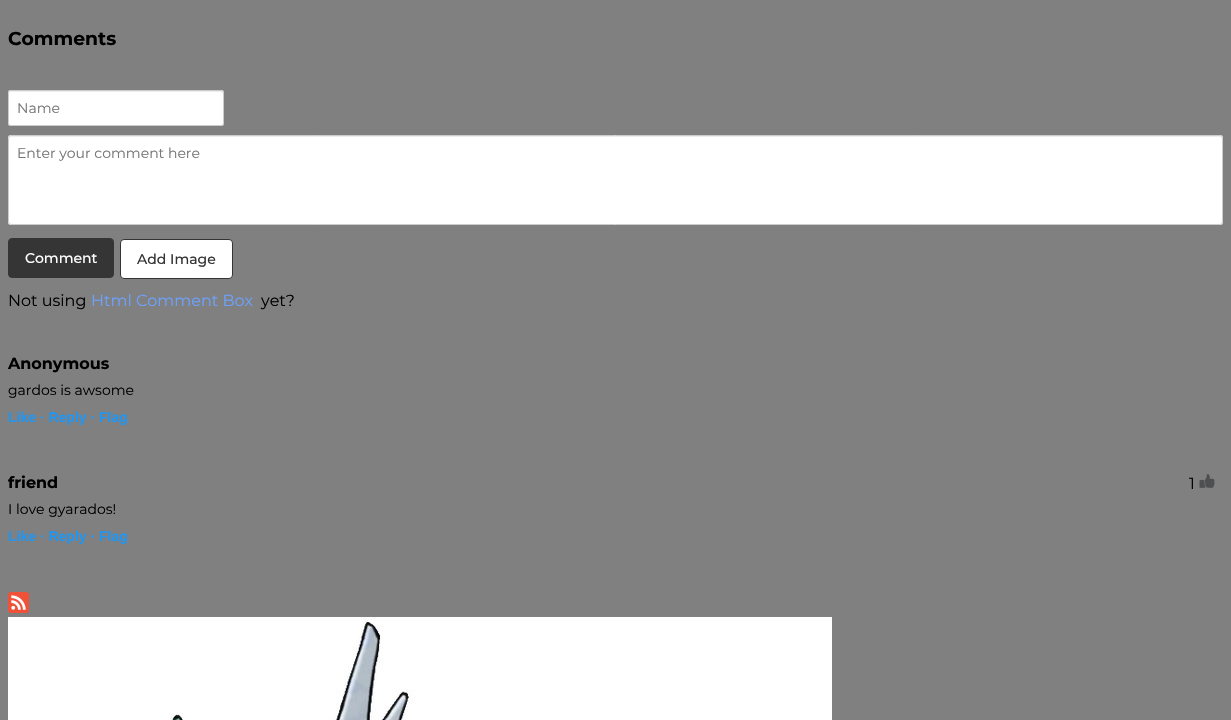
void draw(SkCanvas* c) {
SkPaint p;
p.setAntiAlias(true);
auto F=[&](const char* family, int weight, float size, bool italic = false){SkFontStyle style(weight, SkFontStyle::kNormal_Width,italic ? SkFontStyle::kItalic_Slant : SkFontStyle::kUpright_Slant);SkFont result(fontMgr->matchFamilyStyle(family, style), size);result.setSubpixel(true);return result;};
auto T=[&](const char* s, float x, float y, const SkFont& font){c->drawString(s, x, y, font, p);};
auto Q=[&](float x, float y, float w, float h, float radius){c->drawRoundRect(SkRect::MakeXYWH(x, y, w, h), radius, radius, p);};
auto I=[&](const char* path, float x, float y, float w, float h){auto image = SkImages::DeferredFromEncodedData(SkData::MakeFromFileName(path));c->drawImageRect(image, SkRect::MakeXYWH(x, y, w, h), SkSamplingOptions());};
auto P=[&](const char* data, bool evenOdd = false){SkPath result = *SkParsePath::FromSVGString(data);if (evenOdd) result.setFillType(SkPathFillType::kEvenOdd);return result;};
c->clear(0xff808080);
auto f1 = F("Montserrat",700,18.75);
p.setColor(0xff000000);
T("Comments",8,45,f1);
p.setColor(0xffffffff);
Q(8,90,216,36,3);
p.setColor(0xffededed);
c->drawPath(P("M11 92h210c1 0 2 1 2 2c0-1 0-3-2-3h-210l-1 1l-1 2c0-1 1-2 2-2z"),p);
p.setStroke(true);
p.setStrokeWidth(1);
p.setColor(0xffcccccc);
c->drawRoundRect(SkRect::MakeXYWH(8.5,90.5,215,35),2.5,2.5,p);
auto f2 = F("Montserrat",400,14);
p.setStroke(false);
p.setColor(0xff757575);
T("Name",17,113,f2);
p.setColor(0xffffffff);
Q(8,135,1215,90,3);
p.setColor(0xffededed);
c->drawPath(P("M11 137h1209c1 0 2 1 2 2v-2l-2-1h-1209c-1 0-2 1-2 2v1c0-1 1-2 2-2z"),p);
p.setStroke(true);
p.setColor(0xffcccccc);
c->drawRoundRect(SkRect::MakeXYWH(8.5,135.5,1214,89),2.5,2.5,p);
p.setStroke(false);
p.setColor(0xff757575);
T("Enter your comment here",17,158,f2);
p.setColor(0xff353535);
c->drawRoundRect(SkRect::MakeXYWH(8.5,238.5,105,39),3.5,3.5,p);
p.setStroke(true);
c->drawRoundRect(SkRect::MakeXYWH(8.5,238.5,105,39),3.5,3.5,p);
auto f3 = F("Montserrat",500,14);
p.setStroke(false);
p.setColor(0xffffffff);
T("Comment",25,263,f3);
c->drawRoundRect(SkRect::MakeXYWH(120.5,239.5,112,39),3.5,3.5,p);
p.setStroke(true);
p.setColor(0xff353535);
c->drawRoundRect(SkRect::MakeXYWH(120.5,239.5,112,39),3.5,3.5,p);
p.setStroke(false);
T("Add Image",137,264,f3);
auto f4 = F("Montserrat",400,16);
p.setColor(0xff000000);
T("Not using",8,306,f4);
p.setColor(0xff6ca2fd);
T("Html Comment Box",91,306,f4);
p.setColor(0xff000000);
T("yet?",261,306,f4);
auto f5 = F("Montserrat",700,16);
T("Anonymous",8,369,f5);
T("gardos is awsome",8,395,f2);
auto f6 = F("Liberation Sans",700,14);
p.setColor(0xff2096f3);
T("Like · Reply · Flag",8,422,f6);
p.setColor(0xff000000);
T("friend",8,488,f5);
T("I love gyarados!",8,514,f2);
T("1",1189,489,f4);
I("1.png",1199,474,16,14);
p.setColor(0xff2096f3);
T("Like · Reply · Flag",8,541,f6);
I("2.png",8,592,21,21);
I("3.png",8,617,824,103);
}
